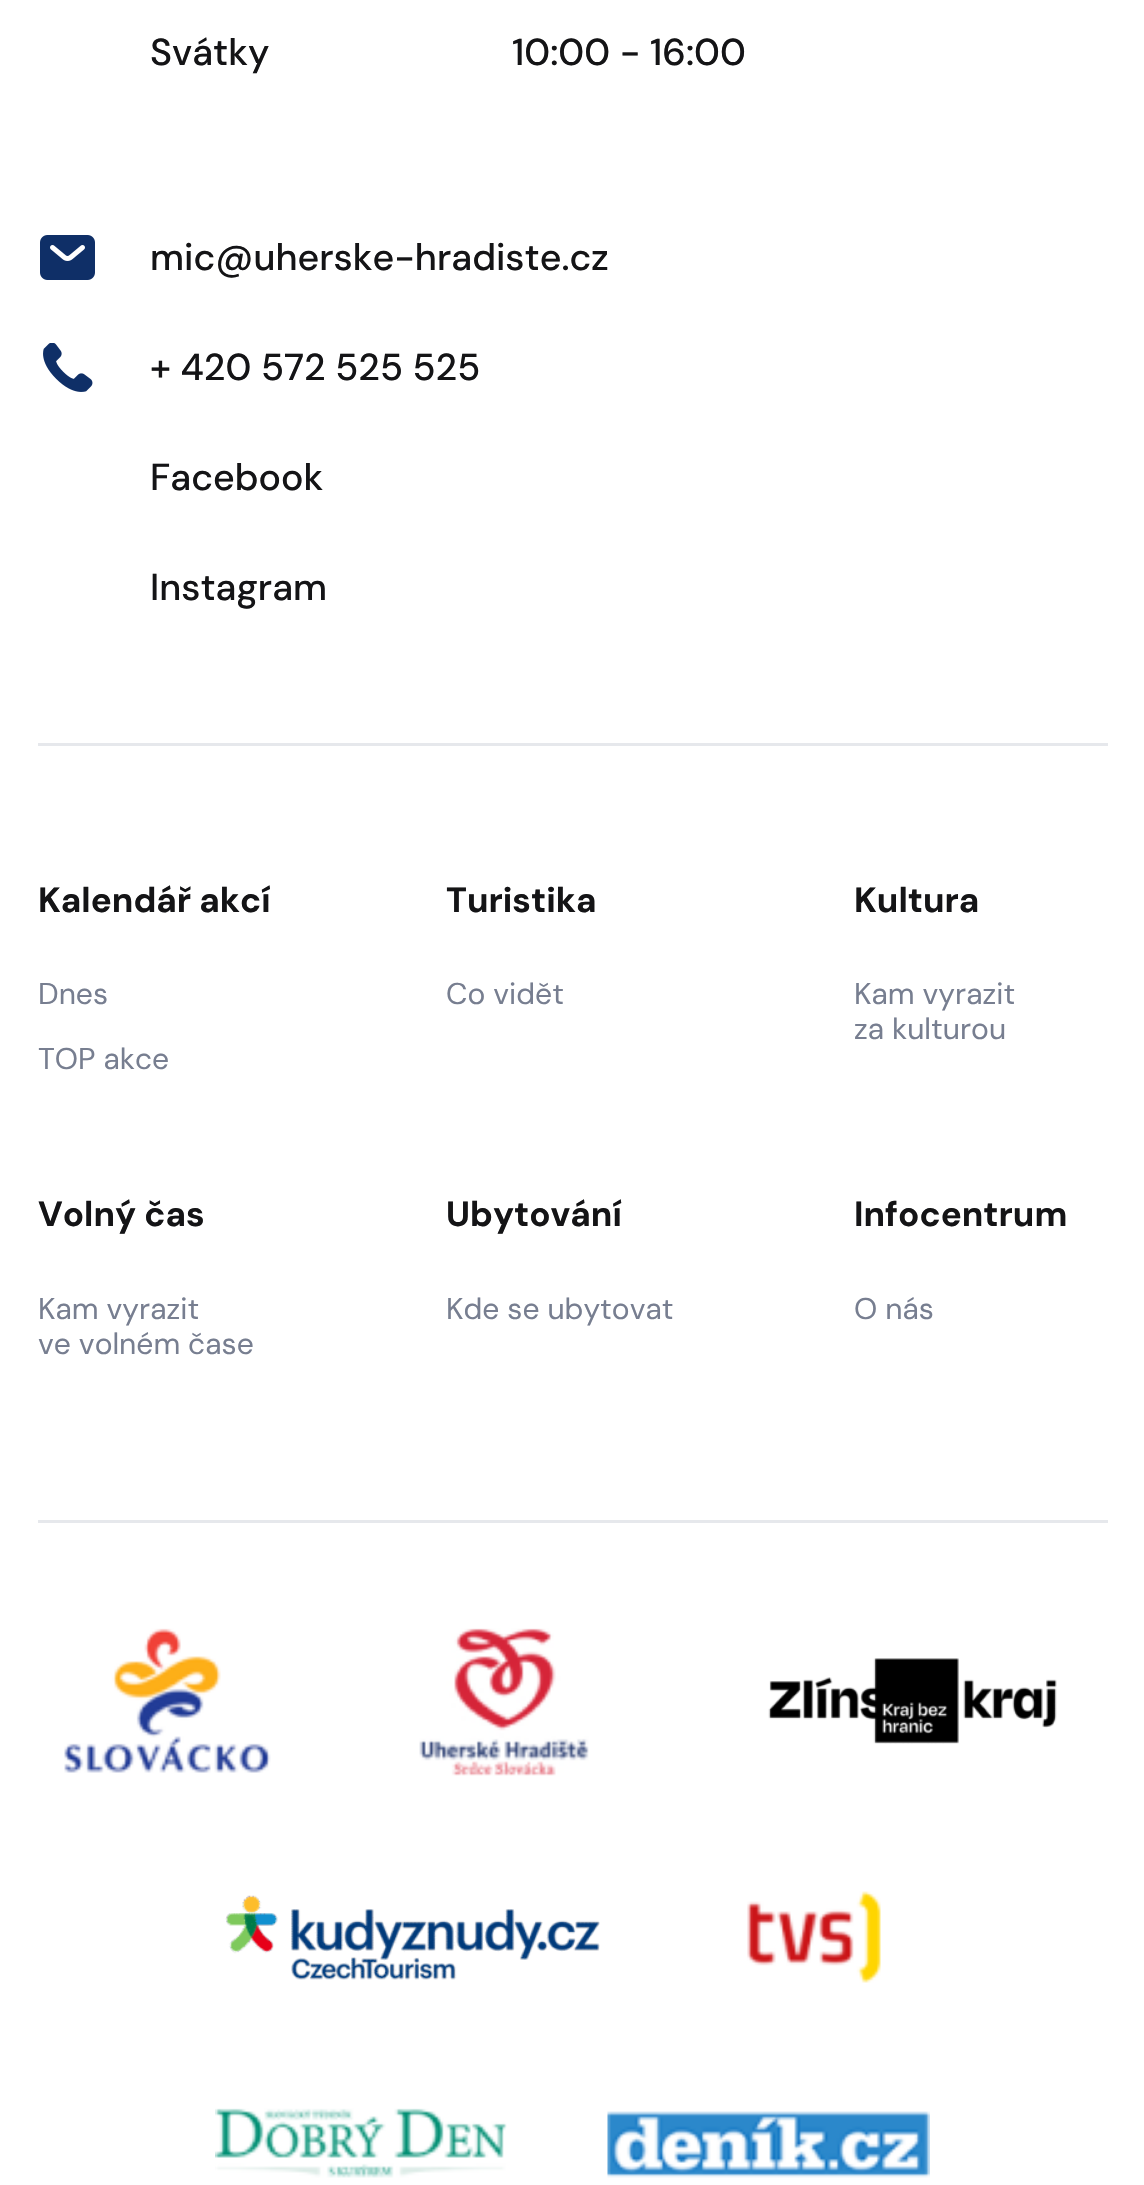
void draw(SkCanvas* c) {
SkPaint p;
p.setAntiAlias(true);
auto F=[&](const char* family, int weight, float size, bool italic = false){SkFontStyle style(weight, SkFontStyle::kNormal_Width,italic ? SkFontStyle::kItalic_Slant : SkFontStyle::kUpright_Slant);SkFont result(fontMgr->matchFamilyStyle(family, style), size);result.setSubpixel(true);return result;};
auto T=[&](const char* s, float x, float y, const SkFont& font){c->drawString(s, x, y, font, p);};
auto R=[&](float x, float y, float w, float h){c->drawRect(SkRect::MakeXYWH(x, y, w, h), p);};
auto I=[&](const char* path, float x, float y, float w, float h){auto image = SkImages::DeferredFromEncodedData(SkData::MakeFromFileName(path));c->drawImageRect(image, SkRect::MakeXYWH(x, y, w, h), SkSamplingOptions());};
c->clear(0xffffffff);
auto f1 = F("DM Sans",500,37.5);
p.setColor(0xff141416);
T("Svátky",150,65,f1);
T("10:00 - 16:00",512,65,f1);
I("1.png",40,235,55,45);
T("mic@uherske-hradiste.cz",150,270,f1);
I("2.png",43,343,50,49);
T("+ 420 572 525 525",150,380,f1);
T("Facebook",150,490,f1);
T("Instagram",150,600,f1);
p.setColor(0xffe6e8ec);
R(38,743,1070,3);
auto f2 = F("DM Sans",700,35);
p.setColor(0xff141416);
T("Kalendář akcí",38,912,f2);
auto f3 = F("DM Sans",400,30);
p.setColor(0xff777e90);
T("Dnes",38,1004,f3);
T("TOP akce",38,1069,f3);
p.setColor(0xff141416);
T("Turistika",446,912,f2);
p.setColor(0xff777e90);
T("Co vidět",446,1004,f3);
p.setColor(0xff141416);
T("Kultura",854,912,f2);
p.setColor(0xff777e90);
T("Kam vyrazit",854,1004,f3);
T("za kulturou",854,1039,f3);
p.setColor(0xff141416);
T("Volný čas",38,1226,f2);
p.setColor(0xff777e90);
T("Kam vyrazit",38,1319,f3);
T("ve volném čase",38,1354,f3);
p.setColor(0xff141416);
T("Ubytování",446,1226,f2);
p.setColor(0xff777e90);
T("Kde se ubytovat",446,1319,f3);
p.setColor(0xff141416);
T("Infocentrum",854,1226,f2);
p.setColor(0xff777e90);
T("O nás",854,1319,f3);
p.setColor(0xffe6e8ec);
R(38,1520,1070,3);
I("3.png",64,1628,207,145);
I("4.png",419,1628,170,148);
I("5.png",768,1658,289,86);
I("6.png",225,1895,375,85);
I("7.png",747,1891,134,92);
I("8.png",215,2108,292,70);
I("9.png",607,2111,323,67);
}
